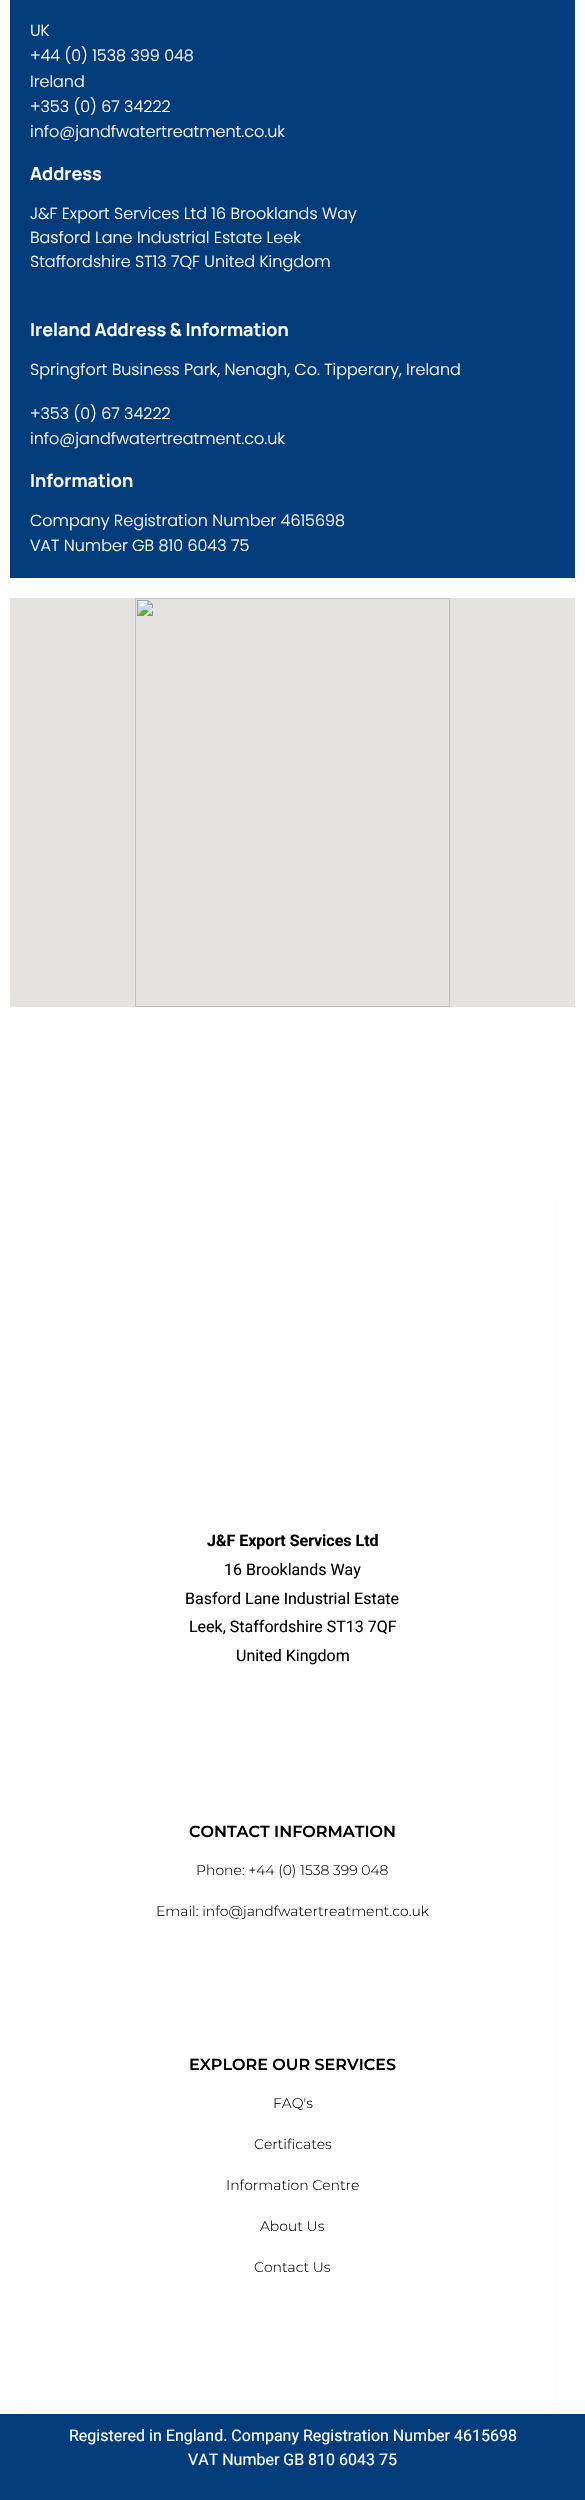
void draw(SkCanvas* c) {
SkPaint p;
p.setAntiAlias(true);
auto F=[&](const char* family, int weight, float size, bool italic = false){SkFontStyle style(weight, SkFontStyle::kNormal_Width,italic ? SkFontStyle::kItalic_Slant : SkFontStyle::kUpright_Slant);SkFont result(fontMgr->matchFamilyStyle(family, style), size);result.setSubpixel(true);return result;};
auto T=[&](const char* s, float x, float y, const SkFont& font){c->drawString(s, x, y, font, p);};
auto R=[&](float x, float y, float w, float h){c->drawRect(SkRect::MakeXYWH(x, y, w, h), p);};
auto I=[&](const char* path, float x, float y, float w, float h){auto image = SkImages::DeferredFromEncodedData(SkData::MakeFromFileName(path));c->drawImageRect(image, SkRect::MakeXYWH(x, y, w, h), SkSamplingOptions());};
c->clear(0xffffffff);
p.setColor(0xff033c7b);
R(10,0,565,578);
auto f1 = F("Poppins",300,16);
p.setColor(0xfffbf9ed);
T("UK",30,36,f1);
T("+44 (0) 1538 399 048",30,61,f1);
T("Ireland",30,87,f1);
T("+353 (0) 67 34222",30,112,f1);
T("info@jandfwatertreatment.co.uk",30,137,f1);
auto f2 = F("Manrope",700,18);
T("Address",30,180,f2);
T("J&F Export Services Ltd 16 Brooklands Way",30,219,f1);
T("Basford Lane Industrial Estate Leek",30,243,f1);
T("Staffordshire ST13 7QF United Kingdom",30,267,f1);
T("Ireland Address & Information",30,336,f2);
T("Springfort Business Park, Nenagh, Co. Tipperary, Ireland",30,375,f1);
T("+353 (0) 67 34222",30,419,f1);
T("info@jandfwatertreatment.co.uk",30,444,f1);
T("Information",30,487,f2);
T("Company Registration Number 4615698",30,526,f1);
T("VAT Number GB 810 6043 75",30,551,f1);
I("1.png",10,598,565,409);
p.setColor(0xfffffdfc);
R(555,1198,1,1216);
R(29,1198,1,1216);
auto f3 = F("Roboto",700,16);
p.setColor(0xff000000);
T("J&F Export Services Ltd",207,1546,f3);
auto f4 = F("Roboto",400,16);
T("16 Brooklands Way",224,1575,f4);
T("Basford Lane Industrial Estate",185,1604,f4);
T("Leek, Staffordshire ST13 7QF",189,1632,f4);
T("United Kingdom",236,1661,f4);
auto f5 = F("Montserrat",600,16);
T("CONTACT INFORMATION",189,1837,f5);
auto f6 = F("Montserrat",300,14);
T("Phone: +44 (0) 1538 399 048",196,1875,f6);
T("Email: info@jandfwatertreatment.co.uk",156,1916,f6);
T("EXPLORE OUR SERVICES",189,2070,f5);
T("FAQ's",273,2108,f6);
T("Certificates",254,2149,f6);
T("Information Centre",226,2190,f6);
T("About Us",260,2231,f6);
T("Contact Us",254,2272,f6);
p.setColor(0xff033c7b);
R(0,2414,585,86);
p.setColor(0xffffffff);
T("Registered in England. Company Registration Number 4615698",69,2441,f4);
T("VAT Number GB 810 6043 75",188,2465,f4);
}
